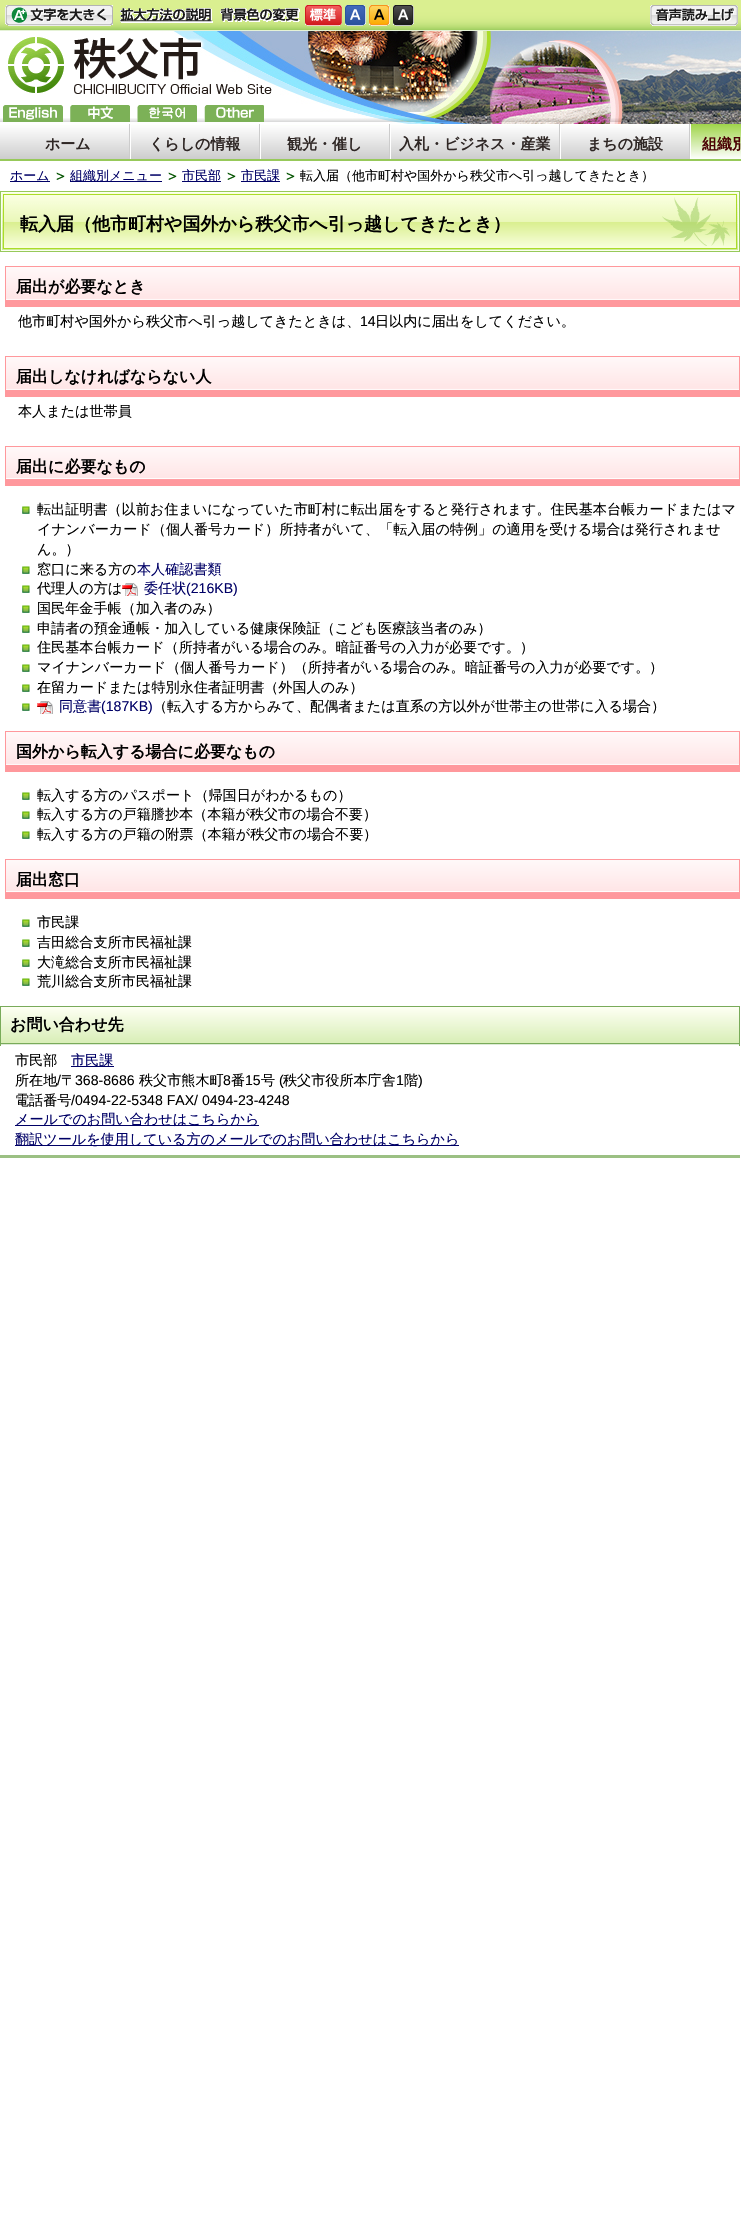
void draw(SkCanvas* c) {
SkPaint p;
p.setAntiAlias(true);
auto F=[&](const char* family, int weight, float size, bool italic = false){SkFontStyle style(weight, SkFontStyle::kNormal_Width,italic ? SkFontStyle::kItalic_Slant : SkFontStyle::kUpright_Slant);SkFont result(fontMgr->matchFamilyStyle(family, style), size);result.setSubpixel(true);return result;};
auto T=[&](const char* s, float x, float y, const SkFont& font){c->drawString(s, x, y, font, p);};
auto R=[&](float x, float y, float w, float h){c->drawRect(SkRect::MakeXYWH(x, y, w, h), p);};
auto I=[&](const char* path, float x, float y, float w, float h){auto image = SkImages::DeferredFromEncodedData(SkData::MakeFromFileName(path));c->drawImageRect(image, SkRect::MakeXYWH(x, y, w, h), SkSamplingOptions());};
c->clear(0xffffffff);
I("1.png",0,31,741,93);
I("2.png",0,0,741,31);
I("3.png",5,5,108,21);
I("4.png",120,8,93,15);
I("5.png",220,8,80,14);
I("6.png",305,5,37,21);
I("7.png",345,5,21,21);
I("8.png",369,5,21,21);
I("9.png",393,5,21,21);
I("10.png",650,5,88,21);
I("11.png",8,37,264,57);
I("12.png",3,105,60,17);
I("13.png",70,105,60,17);
I("14.png",137,105,60,17);
I("15.png",204,105,60,17);
I("16.png",0,124,741,37);
I("17.png",0,126,129,33);
auto f1 = F("WenQuanYi Zen Hei",700,15);
p.setColor(0xff2f2725);
T("ホーム",45,149,f1);
I("18.png",131,126,128,33);
T("くらしの情報",149,149,f1);
I("18.png",261,126,128,33);
T("観光・催し",287,149,f1);
I("19.png",391,126,168,33);
T("入札・ビジネス・産業",399,149,f1);
I("18.png",561,126,128,33);
T("まちの施設",587,149,f1);
I("20.png",691,124,50,35);
p.setColor(0xff4a0003);
T("組織別",702,149,f1);
p.setColor(0xff000066);
R(10,181,40,1);
auto f2 = F("WenQuanYi Zen Hei",500,13);
T("ホーム",10,180,f2);
I("21.png",56,172,9,8);
R(70,181,92,1);
T("組織別メニュー",70,180,f2);
I("21.png",168,172,9,8);
R(182,181,39,1);
T("市民部",182,180,f2);
I("21.png",227,172,9,8);
R(241,181,39,1);
T("市民課",241,180,f2);
I("21.png",286,172,9,8);
p.setColor(0xff000000);
T("転入届（他市町村や国外から秩父市へ引っ越してきたとき）",300,180,f2);
I("22.png",0,191,740,4);
I("23.png",0,195,740,57);
I("24.png",1,197,738,55);
auto f3 = F("WenQuanYi Zen Hei",700,18);
T("転入届（他市町村や国外から秩父市へ引っ越してきたとき）",20,230,f3);
I("25.png",6,267,733,38);
p.setColor(0xffff989c);
R(5,266,735,1);
R(739,266,1,41);
R(5,305,735,2);
R(5,266,1,41);
auto f4 = F("WenQuanYi Zen Hei",700,16);
p.setColor(0xff000000);
T("届出が必要なとき",16,292,f4);
auto f5 = F("WenQuanYi Zen Hei",500,14.1);
T("他市町村や国外から秩父市へ引っ越してきたときは、",18,326,f5);
auto f6 = F("Liberation Sans",400,14.1);
T("14",360,326,f6);
T("日以内に届出をしてください。",375,326,f5);
I("25.png",6,357,733,38);
p.setColor(0xffff989c);
R(5,356,735,1);
R(739,356,1,41);
R(5,395,735,2);
R(5,356,1,41);
p.setColor(0xff000000);
T("届出しなければならない人",16,382,f4);
T("本人または世帯員",18,416,f5);
I("26.png",6,447,733,37);
p.setColor(0xffff989c);
R(5,446,735,1);
R(739,446,1,40);
R(5,484,735,2);
R(5,446,1,40);
p.setColor(0xff000000);
T("届出に必要なもの",16,472,f4);
I("27.png",22,506,8,8);
T("転出証明書（以前お住まいになっていた市町村に転出届をすると発行されます。住民基本台帳カードまたはマ",37,514,f5);
T("イナンバーカード（個人番号カード）所持者がいて、「転入届の特例」の適用を受ける場合は発行されませ",37,534,f5);
T("ん。）",37,554,f5);
I("27.png",22,566,8,8);
T("窓口に来る方の",37,574,f5);
p.setColor(0xff000066);
T("本人確認書類",137,574,f5);
I("27.png",22,585,8,8);
p.setColor(0xff000000);
T("代理人の方は",37,593,f5);
I("28.png",122,583,16,13);
p.setColor(0xff000066);
T("委任状",144,593,f5);
T("(216KB)",186,593,f6);
I("27.png",22,605,8,8);
p.setColor(0xff000000);
T("国民年金手帳（加入者のみ）",37,613,f5);
I("27.png",22,625,8,8);
T("申請者の預金通帳・加入している健康保険証（こども医療該当者のみ）",37,633,f5);
I("27.png",22,644,8,8);
T("住民基本台帳カード（所持者がいる場合のみ。暗証番号の入力が必要です。）",37,652,f5);
I("27.png",22,664,8,8);
T("マイナンバーカード（個人番号カード）（所持者がいる場合のみ。暗証番号の入力が必要です。）",37,672,f5);
I("27.png",22,684,8,8);
T("在留カードまたは特別永住者証明書（外国人のみ）",37,692,f5);
I("27.png",22,703,8,8);
I("28.png",37,701,16,13);
p.setColor(0xff000066);
T("同意書",59,711,f5);
T("(187KB)",101,711,f6);
p.setColor(0xff000000);
T("（転入する方からみて、配偶者または直系の方以外が世帯主の世帯に入る場合）",153,711,f5);
I("25.png",6,732,733,38);
p.setColor(0xffff989c);
R(5,731,735,1);
R(739,731,1,41);
R(5,770,735,2);
R(5,731,1,41);
p.setColor(0xff000000);
T("国外から転入する場合に必要なもの",16,757,f4);
I("27.png",22,792,8,8);
T("転入する方のパスポート（帰国日がわかるもの）",37,800,f5);
I("27.png",22,811,8,8);
T("転入する方の戸籍謄抄本（本籍が秩父市の場合不要）",37,819,f5);
I("27.png",22,831,8,8);
T("転入する方の戸籍の附票（本籍が秩父市の場合不要）",37,839,f5);
I("26.png",6,860,733,37);
p.setColor(0xffff989c);
R(5,859,735,1);
R(739,859,1,40);
R(5,897,735,2);
R(5,859,1,40);
p.setColor(0xff000000);
T("届出窓口",16,885,f4);
I("27.png",22,919,8,8);
T("市民課",37,927,f5);
I("27.png",22,939,8,8);
T("吉田総合支所市民福祉課",37,947,f5);
I("27.png",22,959,8,8);
T("大滝総合支所市民福祉課",37,967,f5);
I("27.png",22,978,8,8);
T("荒川総合支所市民福祉課",37,986,f5);
I("29.png",0,1006,740,36);
T("お問い合わせ先",10,1030,f4);
I("30.png",0,1042,740,4);
T("市民部",15,1065,f5);
p.setColor(0xff000066);
R(71,1066,43,1);
T("市民課",71,1065,f5);
p.setColor(0xff000000);
T("所在地",15,1085,f5);
T("/",57,1085,f6);
T("〒",61,1085,f5);
T("368-8686",75,1085,f6);
T("秩父市熊木町",139,1085,f5);
T("8",223,1085,f6);
T("番",231,1085,f5);
T("15",245,1085,f6);
T("号",261,1085,f5);
T("(",279,1085,f6);
T("秩父市役所本庁舎",283,1085,f5);
T("1",396,1085,f6);
T("階",404,1085,f5);
T(")",418,1085,f6);
T("電話番号",15,1105,f5);
T("/0494-22-5348 FAX/ 0494-23-4248",71,1105,f6);
p.setColor(0xff000066);
R(15,1125,244,1);
T("メールでのお問い合わせはこちらから",15,1124,f5);
R(15,1145,444,1);
T("翻訳ツールを使用している方のメールでのお問い合わせはこちらから",15,1144,f5);
p.setColor(0xff9bc083);
R(0,1155,740,3);
}
